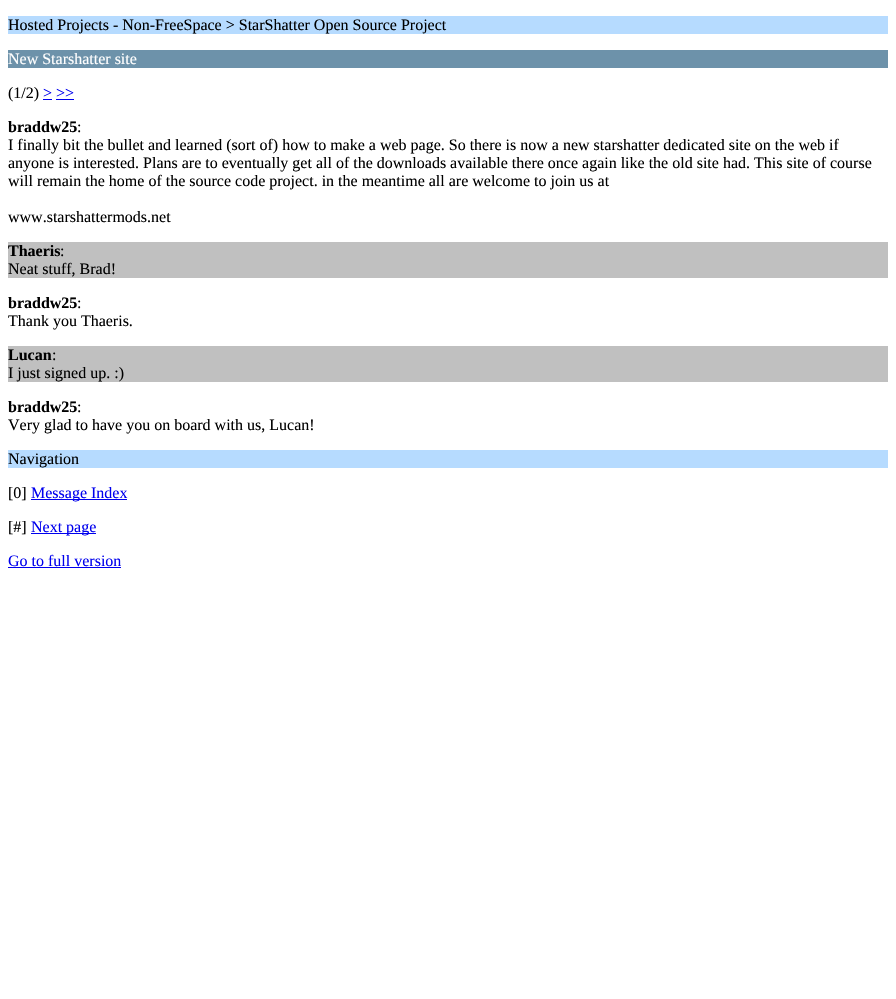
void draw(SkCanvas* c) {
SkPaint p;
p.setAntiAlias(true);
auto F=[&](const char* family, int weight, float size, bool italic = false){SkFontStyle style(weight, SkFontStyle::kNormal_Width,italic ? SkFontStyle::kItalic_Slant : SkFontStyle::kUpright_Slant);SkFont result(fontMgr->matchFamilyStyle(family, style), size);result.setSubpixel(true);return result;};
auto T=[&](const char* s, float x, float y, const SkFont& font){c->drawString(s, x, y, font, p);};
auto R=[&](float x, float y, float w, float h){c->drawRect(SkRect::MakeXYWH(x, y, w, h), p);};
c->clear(0xffffffff);
p.setColor(0xffb6dbff);
R(8,16,880,18);
auto f1 = F("Liberation Serif",400,16);
p.setColor(0xff000000);
T("Hosted Projects - Non-FreeSpace > StarShatter Open Source Project",8,30,f1);
p.setColor(0xff6d92aa);
R(8,50,880,18);
p.setColor(0xffffffff);
T("New Starshatter site",8,64,f1);
p.setColor(0xff000000);
T("(1/2)",8,98,f1);
p.setColor(0xff0000ee);
T("> >>",43,98,f1);
R(43,99,9,1);
R(56,99,18,1);
auto f2 = F("Liberation Serif",700,16);
p.setColor(0xff000000);
T("braddw25",8,132,f2);
T(":",77,132,f1);
T("I finally bit the bullet and learned (sort of) how to make a web page. So there is now a new starshatter dedicated site on the web if",8,150,f1);
T("anyone is interested. Plans are to eventually get all of the downloads available there once again like the old site had. This site of course",8,168,f1);
T("will remain the home of the source code project. in the meantime all are welcome to join us at",8,186,f1);
T("www.starshattermods.net",8,222,f1);
p.setColor(0xffc0c0c0);
R(8,242,880,36);
p.setColor(0xff000000);
T("Thaeris",8,256,f2);
T(":",60,256,f1);
T("Neat stuff, Brad!",8,274,f1);
T("braddw25",8,308,f2);
T(":",77,308,f1);
T("Thank you Thaeris.",8,326,f1);
p.setColor(0xffc0c0c0);
R(8,346,880,36);
p.setColor(0xff000000);
T("Lucan",8,360,f2);
T(":",52,360,f1);
T("I just signed up. :)",8,378,f1);
T("braddw25",8,412,f2);
T(":",77,412,f1);
T("Very glad to have you on board with us, Lucan!",8,430,f1);
p.setColor(0xffb6dbff);
R(8,450,880,18);
p.setColor(0xff000000);
T("Navigation",8,464,f1);
T("[0]",8,498,f1);
p.setColor(0xff0000ee);
R(31,499,96,1);
T("Message Index",31,498,f1);
p.setColor(0xff000000);
T("[#]",8,532,f1);
p.setColor(0xff0000ee);
R(31,533,65,1);
T("Next page",31,532,f1);
T("Go to full version",8,566,f1);
R(8,567,113,1);
}
